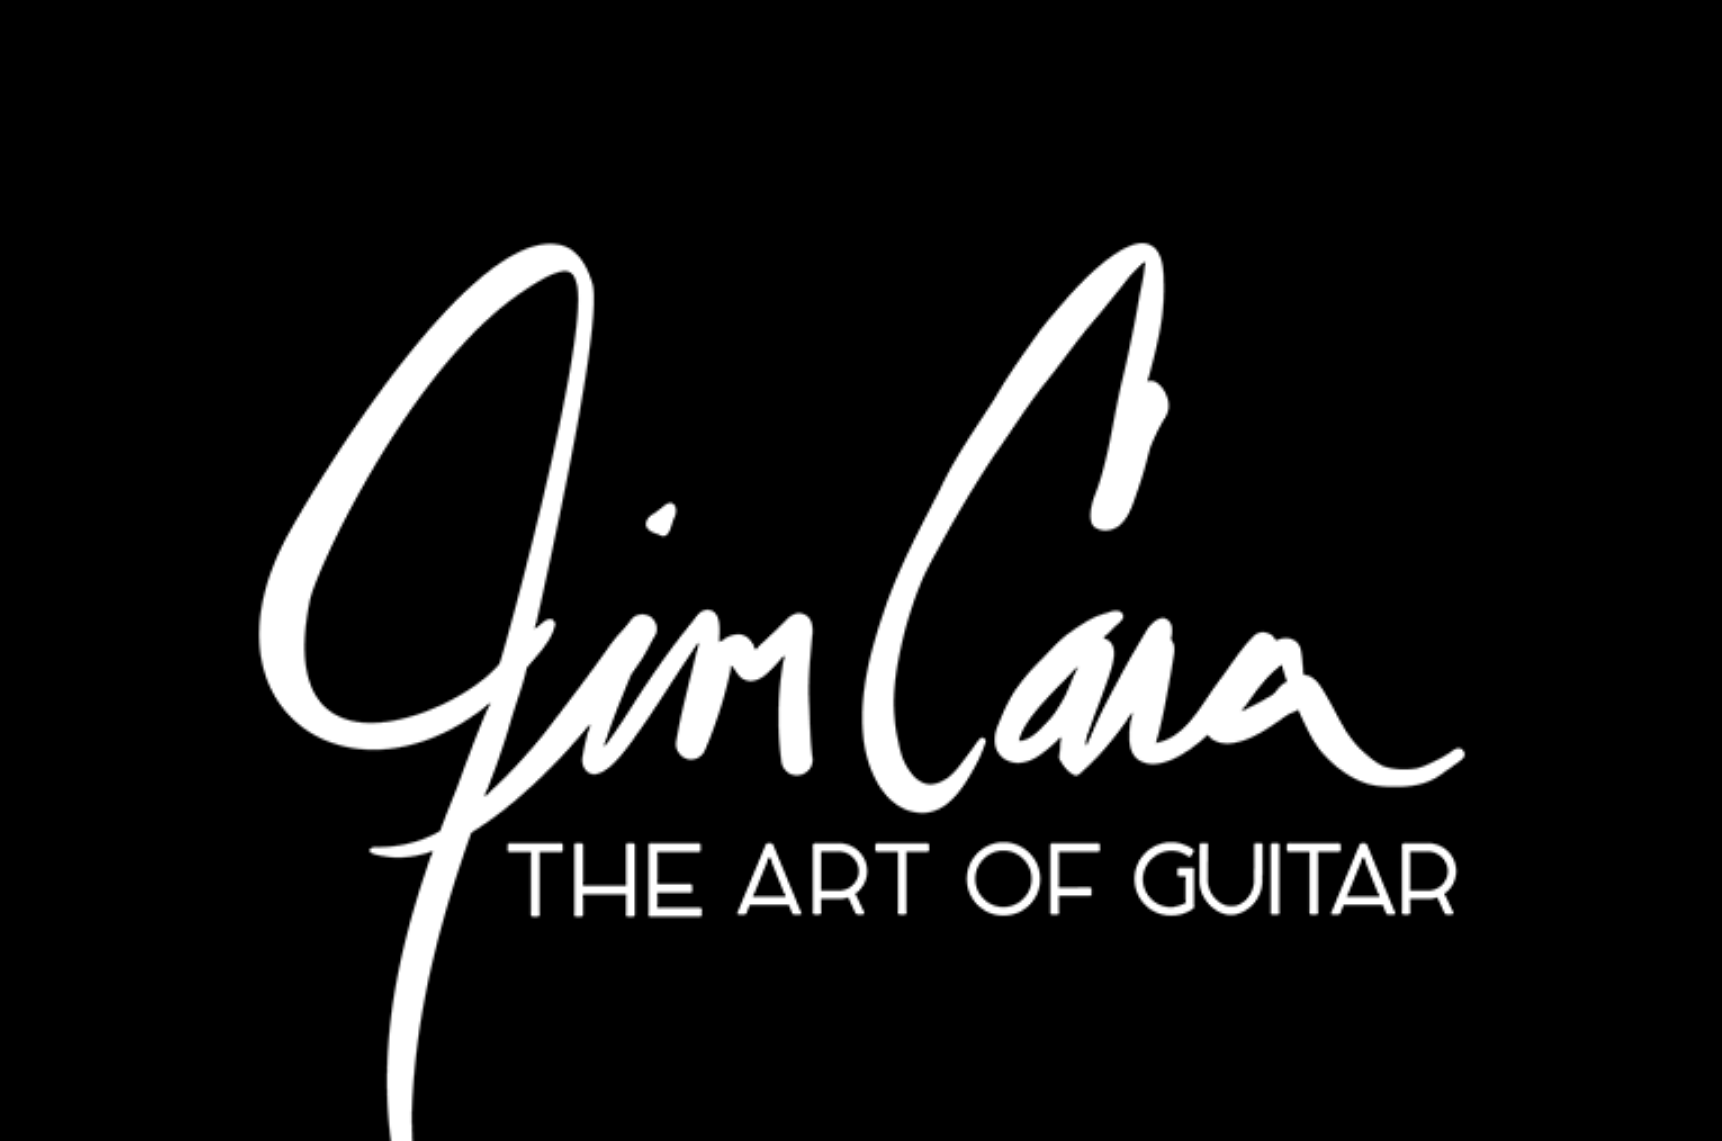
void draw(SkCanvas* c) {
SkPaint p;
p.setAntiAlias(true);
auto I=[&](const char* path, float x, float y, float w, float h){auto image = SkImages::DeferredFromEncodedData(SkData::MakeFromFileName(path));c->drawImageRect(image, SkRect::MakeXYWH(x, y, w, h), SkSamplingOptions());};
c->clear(0xff000000);
I("1.png",258,242,1208,899);
}
